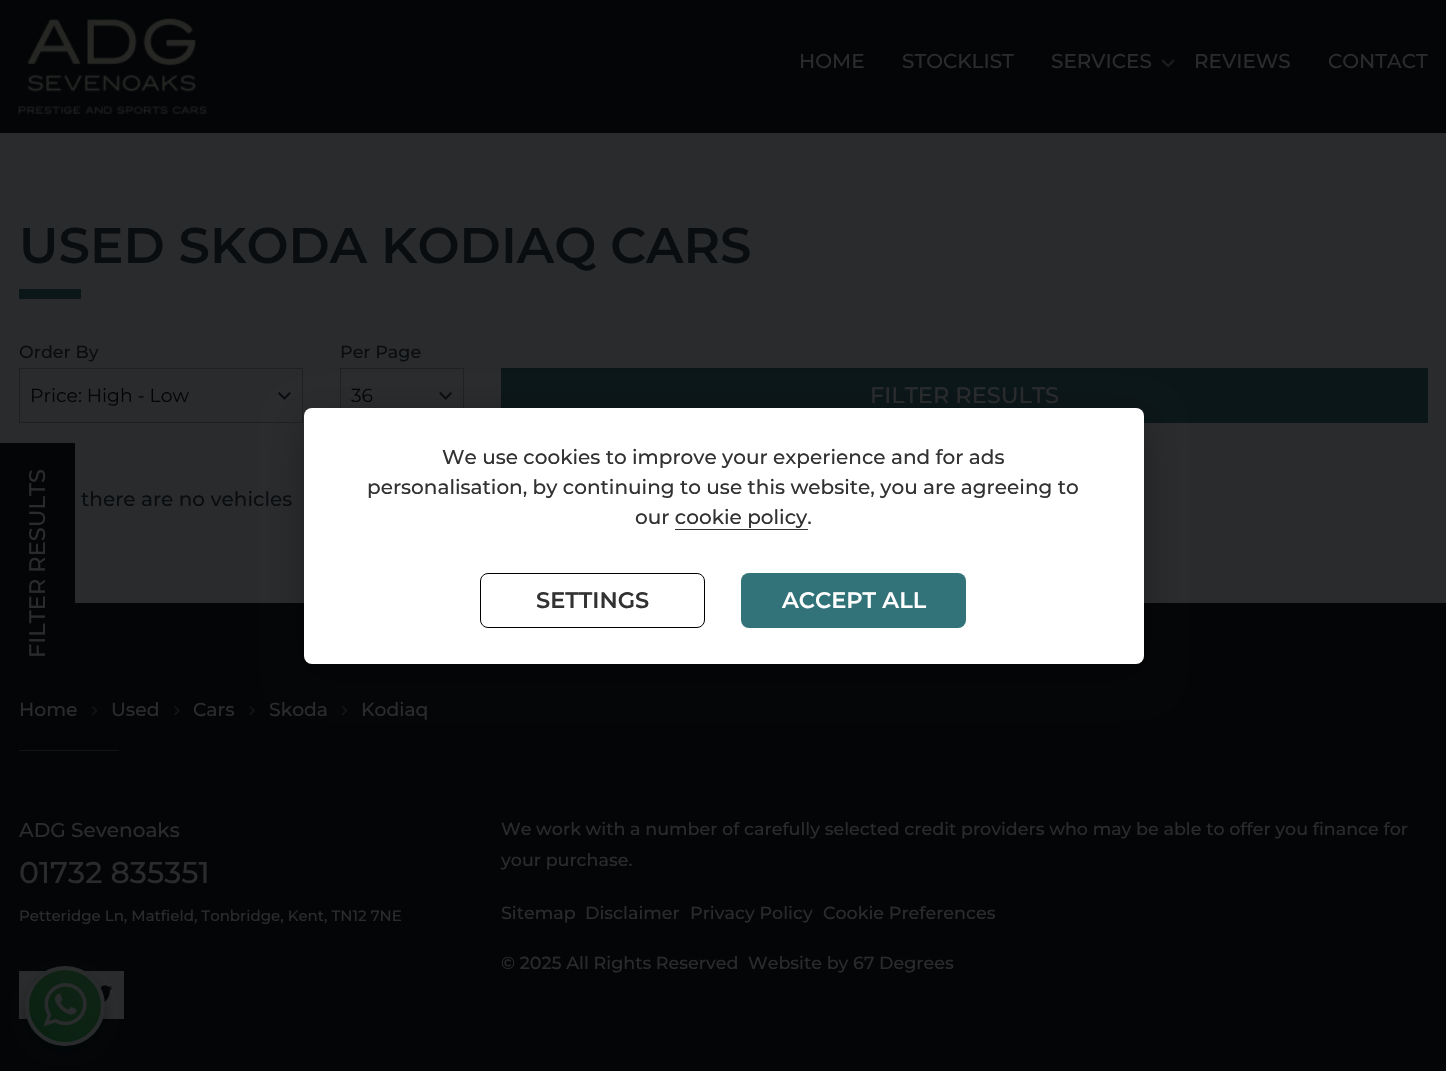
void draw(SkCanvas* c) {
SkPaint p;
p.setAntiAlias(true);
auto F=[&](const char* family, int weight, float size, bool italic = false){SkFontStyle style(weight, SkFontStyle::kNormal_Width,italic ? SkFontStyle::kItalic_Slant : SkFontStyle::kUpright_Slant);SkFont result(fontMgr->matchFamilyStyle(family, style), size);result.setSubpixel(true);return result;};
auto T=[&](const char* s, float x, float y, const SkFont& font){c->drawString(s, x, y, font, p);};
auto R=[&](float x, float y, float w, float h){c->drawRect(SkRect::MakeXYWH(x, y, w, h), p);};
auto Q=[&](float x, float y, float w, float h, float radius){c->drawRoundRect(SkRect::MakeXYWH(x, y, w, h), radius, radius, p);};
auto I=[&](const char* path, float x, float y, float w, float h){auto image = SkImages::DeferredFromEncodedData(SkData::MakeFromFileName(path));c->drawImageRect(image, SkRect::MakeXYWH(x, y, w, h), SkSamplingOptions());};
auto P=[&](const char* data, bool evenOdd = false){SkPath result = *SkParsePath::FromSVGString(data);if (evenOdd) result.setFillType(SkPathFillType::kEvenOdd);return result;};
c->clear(0xff2a2b2d);
p.setColor(0xff030507);
R(0,0,1446,133);
I("1.png",18,18,189,96);
auto f1 = F("Montserrat",500,20);
p.setColor(0xff2a2b2d);
T("HOME",799,68,f1);
T("STOCKLIST",902,68,f1);
T("SERVICES",1051,68,f1);
I("2.png",1161,59,14,9);
T("REVIEWS",1194,68,f1);
T("CONTACT",1328,68,f1);
auto f2 = F("Montserrat",600,50);
p.setColor(0xff0a0d0f);
T("USED SKODA KODIAQ CARS",19,263,f2);
p.setColor(0xff0b1619);
R(19,289,62,10);
auto f3 = F("Montserrat",500,17.5);
p.setColor(0xff0a0d0f);
T("Order By",19,358,f3);
I("3.png",278,392,13,8);
p.setStroke(true);
p.setStrokeWidth(1);
p.setColor(0xff1e2022);
c->drawRect(SkRect::MakeXYWH(19.5,368.5,283,54),p);
auto f4 = F("Montserrat",400,18.75);
p.setStroke(false);
p.setColor(0xff030507);
T("Price: High - Low",30,402,f4);
p.setColor(0xff0a0d0f);
T("Per Page",340,358,f3);
I("4.png",439,392,14,8);
p.setStroke(true);
p.setColor(0xff1e2022);
c->drawRect(SkRect::MakeXYWH(340.5,368.5,123,54),p);
p.setStroke(false);
p.setColor(0xff030507);
T("36",351,402,f4);
p.setColor(0xff0b1619);
R(501,368,927,55);
auto f5 = F("Montserrat",500,22.5);
p.setColor(0xff2a2b2d);
T("FILTER RESULTS",870,403,f5);
p.setColor(0xff030507);
R(0,443,75,160);
R(0,603,1446,468);
p.setColor(0xff2a2b2d);
c->save();
c->rotate(-90,45,658);
T("FILTER RESULTS",45,658,f5);
c->restore();
p.setColor(0xff0a0d0f);
T("there are no vehicles",81,506,f1);
I("6.png",249,706,6,10);
I("5.png",341,706,7,10);
p.setColor(0x47020203);
p.setMaskFilter(SkMaskFilter::MakeBlur(kNormal_SkBlurStyle, 19));
c->drawRoundRect(SkRect::MakeXYWH(304,420,840,256),8,8,p);
p.setMaskFilter(nullptr);
p.setColor(0xffffffff);
Q(304,408,840,256,8);
p.setColor(0xff323232);
T("We use cookies to improve your experience and for ads",442,464,f1);
T("personalisation, by continuing to use this website, you are agreeing to",367,494,f1);
T("our cookie policy.",635,524,f1);
R(675,529,133,1);
p.setStroke(true);
p.setColor(0xff000000);
c->drawRoundRect(SkRect::MakeXYWH(480.5,573.5,224,54),7.5,7.5,p);
auto f6 = F("Montserrat",600,22.5);
p.setStroke(false);
p.setColor(0xff323232);
T("SETTINGS",536,608,f6);
p.setColor(0xff327379);
Q(741,573,225,55,8);
p.setColor(0xffffffff);
T("ACCEPT ALL",782,608,f6);
auto f7 = F("Montserrat",500,18.75);
p.setColor(0xff2a2b2d);
T("Home",19,716,f7);
I("5.png",91,706,7,10);
T("Used",111,716,f7);
I("6.png",174,706,6,10);
T("Cars",193,716,f7);
T("Skoda",269,716,f7);
T("Kodiaq",361,716,f7);
p.setColor(0xff121416);
R(19,750,100,1);
p.setColor(0xff2a2b2d);
T("ADG Sevenoaks",19,837,f1);
auto f8 = F("Montserrat",500,30);
T("01732 835351",19,883,f8);
auto f9 = F("Montserrat",500,15);
T("Petteridge Ln, Matfield, Tonbridge, Kent, TN12 7NE",19,921,f9);
R(19,971,27,48);
R(84,971,40,48);
I("7.png",100,985,13,18);
T("We work with a number of carefully selected credit providers who may be able to offer you finance for",501,835,f3);
T("your purchase.",501,866,f3);
T("Sitemap",501,919,f3);
T("Disclaimer",585,919,f3);
T("Privacy Policy",690,919,f3);
T("Cookie Preferences",823,919,f3);
T("© 2025 All Rights Reserved",501,969,f3);
T("Website by 67 Degrees",748,969,f3);
p.setColor(0x4d030507);
p.setMaskFilter(SkMaskFilter::MakeBlur(kNormal_SkBlurStyle, 6));
c->drawRoundRect(SkRect::MakeXYWH(25,973,80,80),40,40,p);
p.setMaskFilter(nullptr);
c->save();
c->clipPath(P("M65 966c22 0 40 18 40 40c0 22-18 40-40 40c-22 0-40-18-40-40c0-22 18-40 40-40z"),true);
{
const SkColor colors[] = {0xff092010,0xff102415};
const float stops[] = {0,1};
const SkPoint ends[] = {{29,1043}, {101,970}};
p.setShader(SkGradientShader::MakeLinear(ends, colors, stops, 2, SkTileMode::kClamp));
p.setAlpha(255);
}
R(29,970,72,73);
c->restore();
p.setStroke(true);
p.setStrokeWidth(4);
p.setShader(nullptr);
p.setColor(0xff2a2b2d);
c->drawCircle(65,1006,38,p);
I("8.png",43,983,44,44);
}
